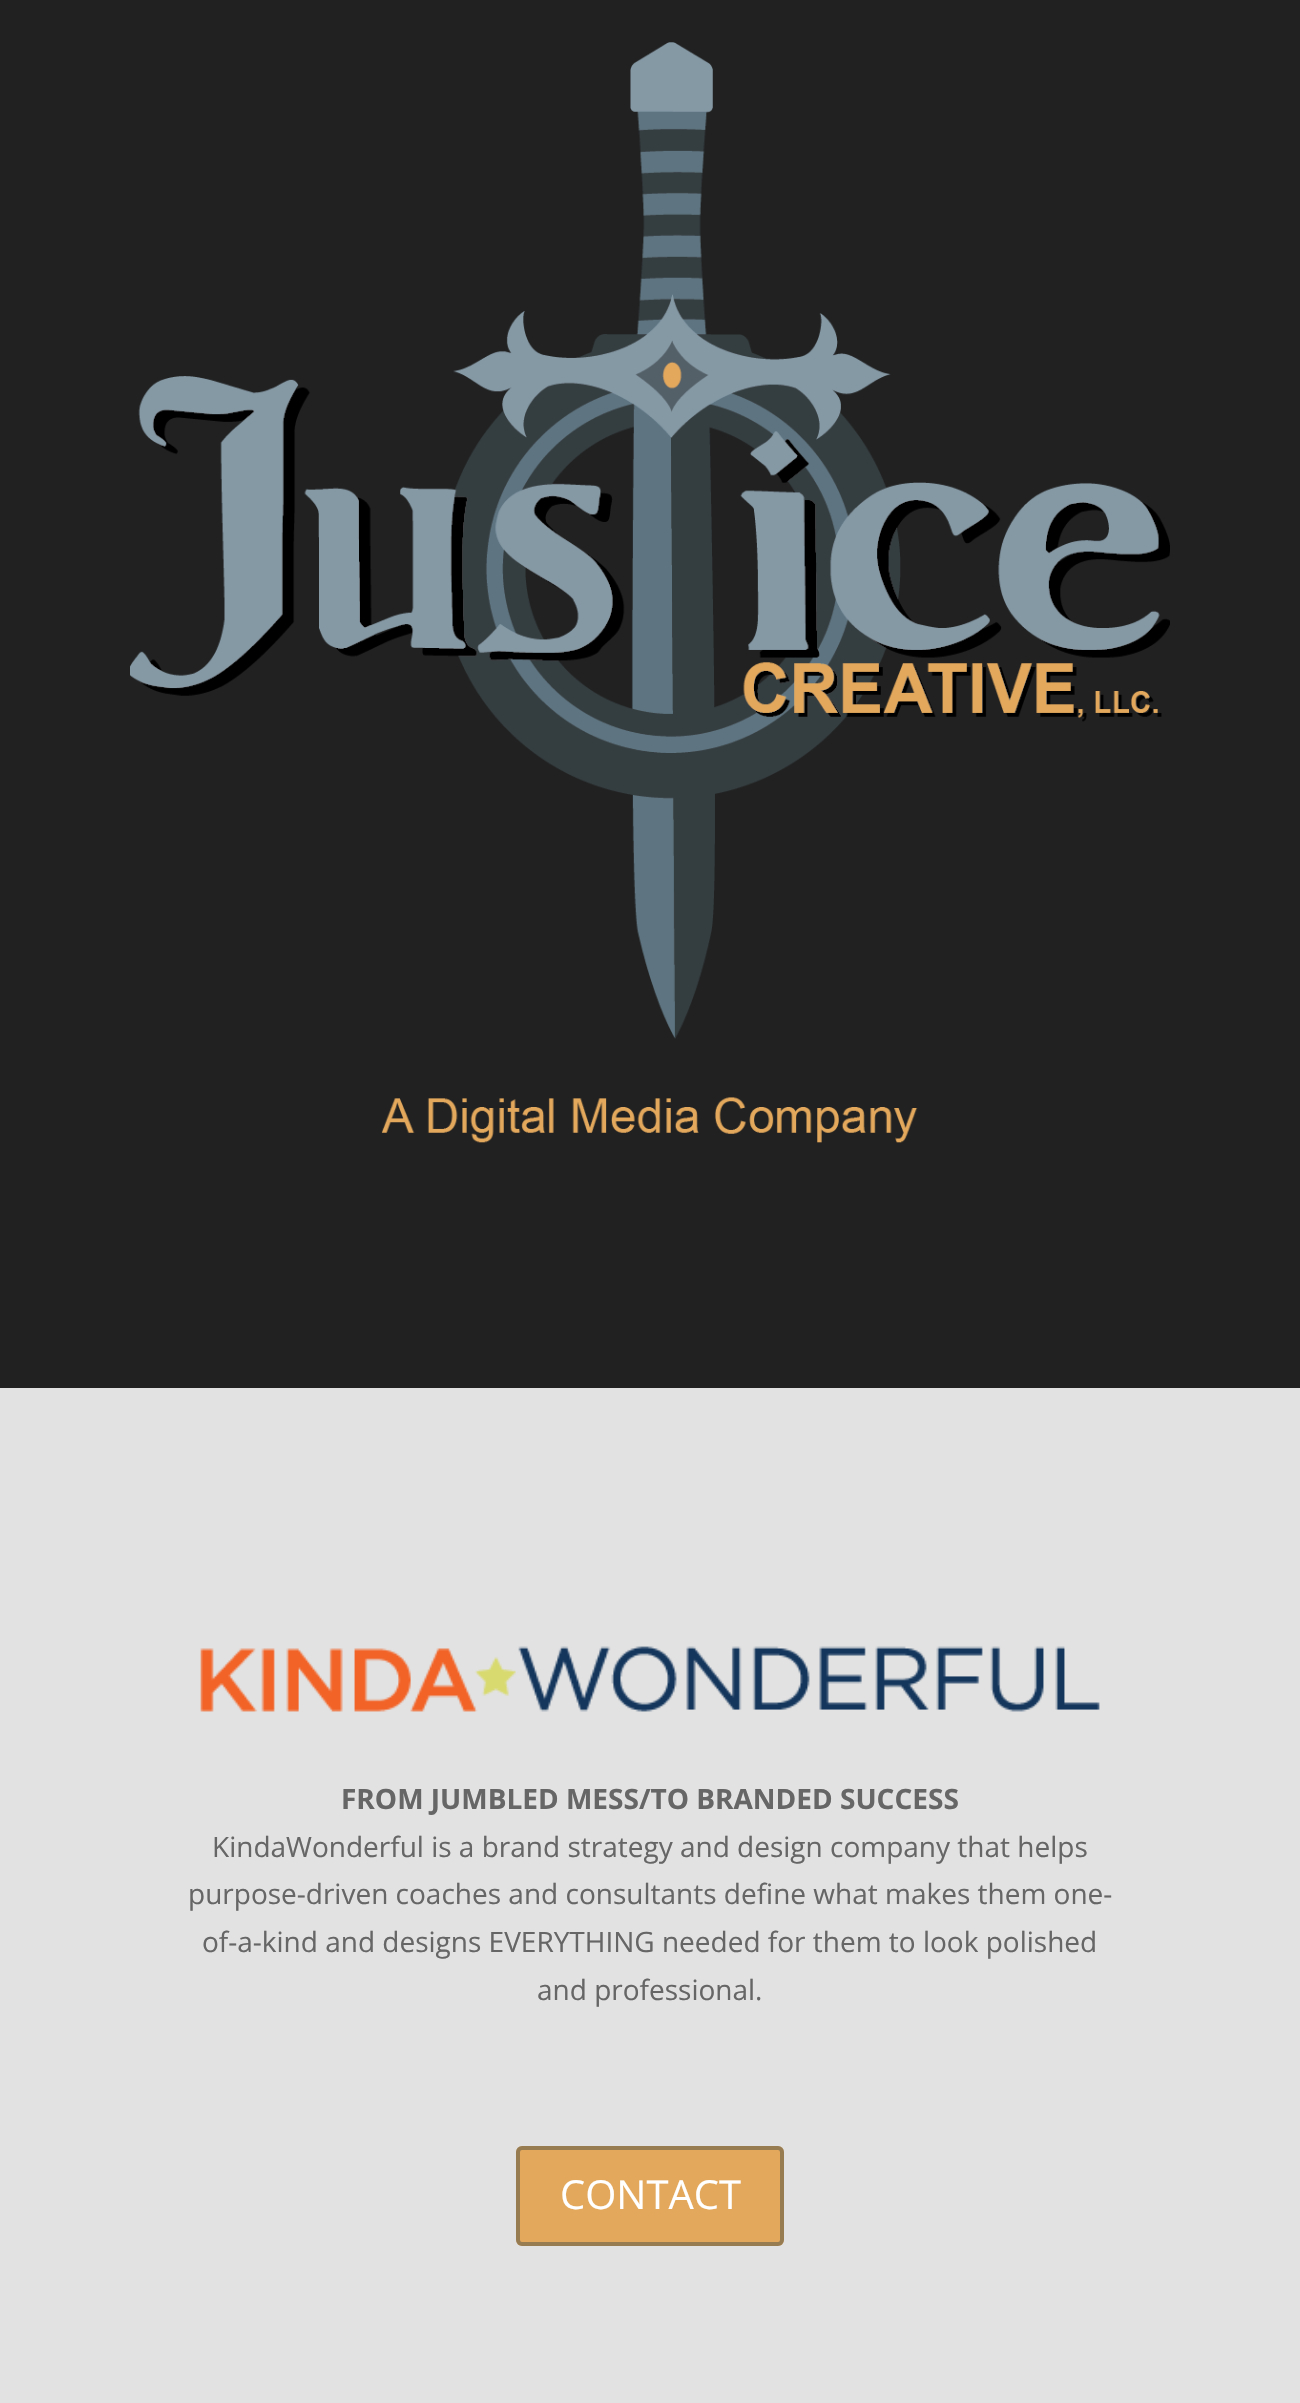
void draw(SkCanvas* c) {
SkPaint p;
p.setAntiAlias(true);
auto F=[&](const char* family, int weight, float size, bool italic = false){SkFontStyle style(weight, SkFontStyle::kNormal_Width,italic ? SkFontStyle::kItalic_Slant : SkFontStyle::kUpright_Slant);SkFont result(fontMgr->matchFamilyStyle(family, style), size);result.setSubpixel(true);return result;};
auto T=[&](const char* s, float x, float y, const SkFont& font){c->drawString(s, x, y, font, p);};
auto R=[&](float x, float y, float w, float h){c->drawRect(SkRect::MakeXYWH(x, y, w, h), p);};
auto Q=[&](float x, float y, float w, float h, float radius){c->drawRoundRect(SkRect::MakeXYWH(x, y, w, h), radius, radius, p);};
auto I=[&](const char* path, float x, float y, float w, float h){auto image = SkImages::DeferredFromEncodedData(SkData::MakeFromFileName(path));c->drawImageRect(image, SkRect::MakeXYWH(x, y, w, h), SkSamplingOptions());};
c->clear(0xff212121);
I("1.png",130,42,1040,1101);
p.setColor(0xffe2e2e2);
R(0,1388,1300,1015);
I("2.png",200,1646,900,66);
auto f1 = F("Open Sans",700,28);
p.setColor(0xff666666);
T("FROM JUMBLED MESS/TO BRANDED SUCCESS",341,1809,f1);
auto f2 = F("Open Sans",400,28);
T("KindaWonderful is a brand strategy and design company that helps",212,1857,f2);
T("purpose-driven coaches and consultants define what makes them one-",188,1904,f2);
T("of-a-kind and designs EVERYTHING needed for them to look polished",202,1952,f2);
T("and professional.",537,2000,f2);
p.setColor(0xffe3a85c);
Q(516,2146,268,100,6);
p.setStroke(true);
p.setStrokeWidth(4);
p.setColor(0x6e343e40);
c->drawRoundRect(SkRect::MakeXYWH(518,2148,264,96),4,4,p);
auto f3 = F("Open Sans",400,40);
p.setStroke(false);
p.setColor(0xffffffff);
T("CONTACT",560,2209,f3);
}
